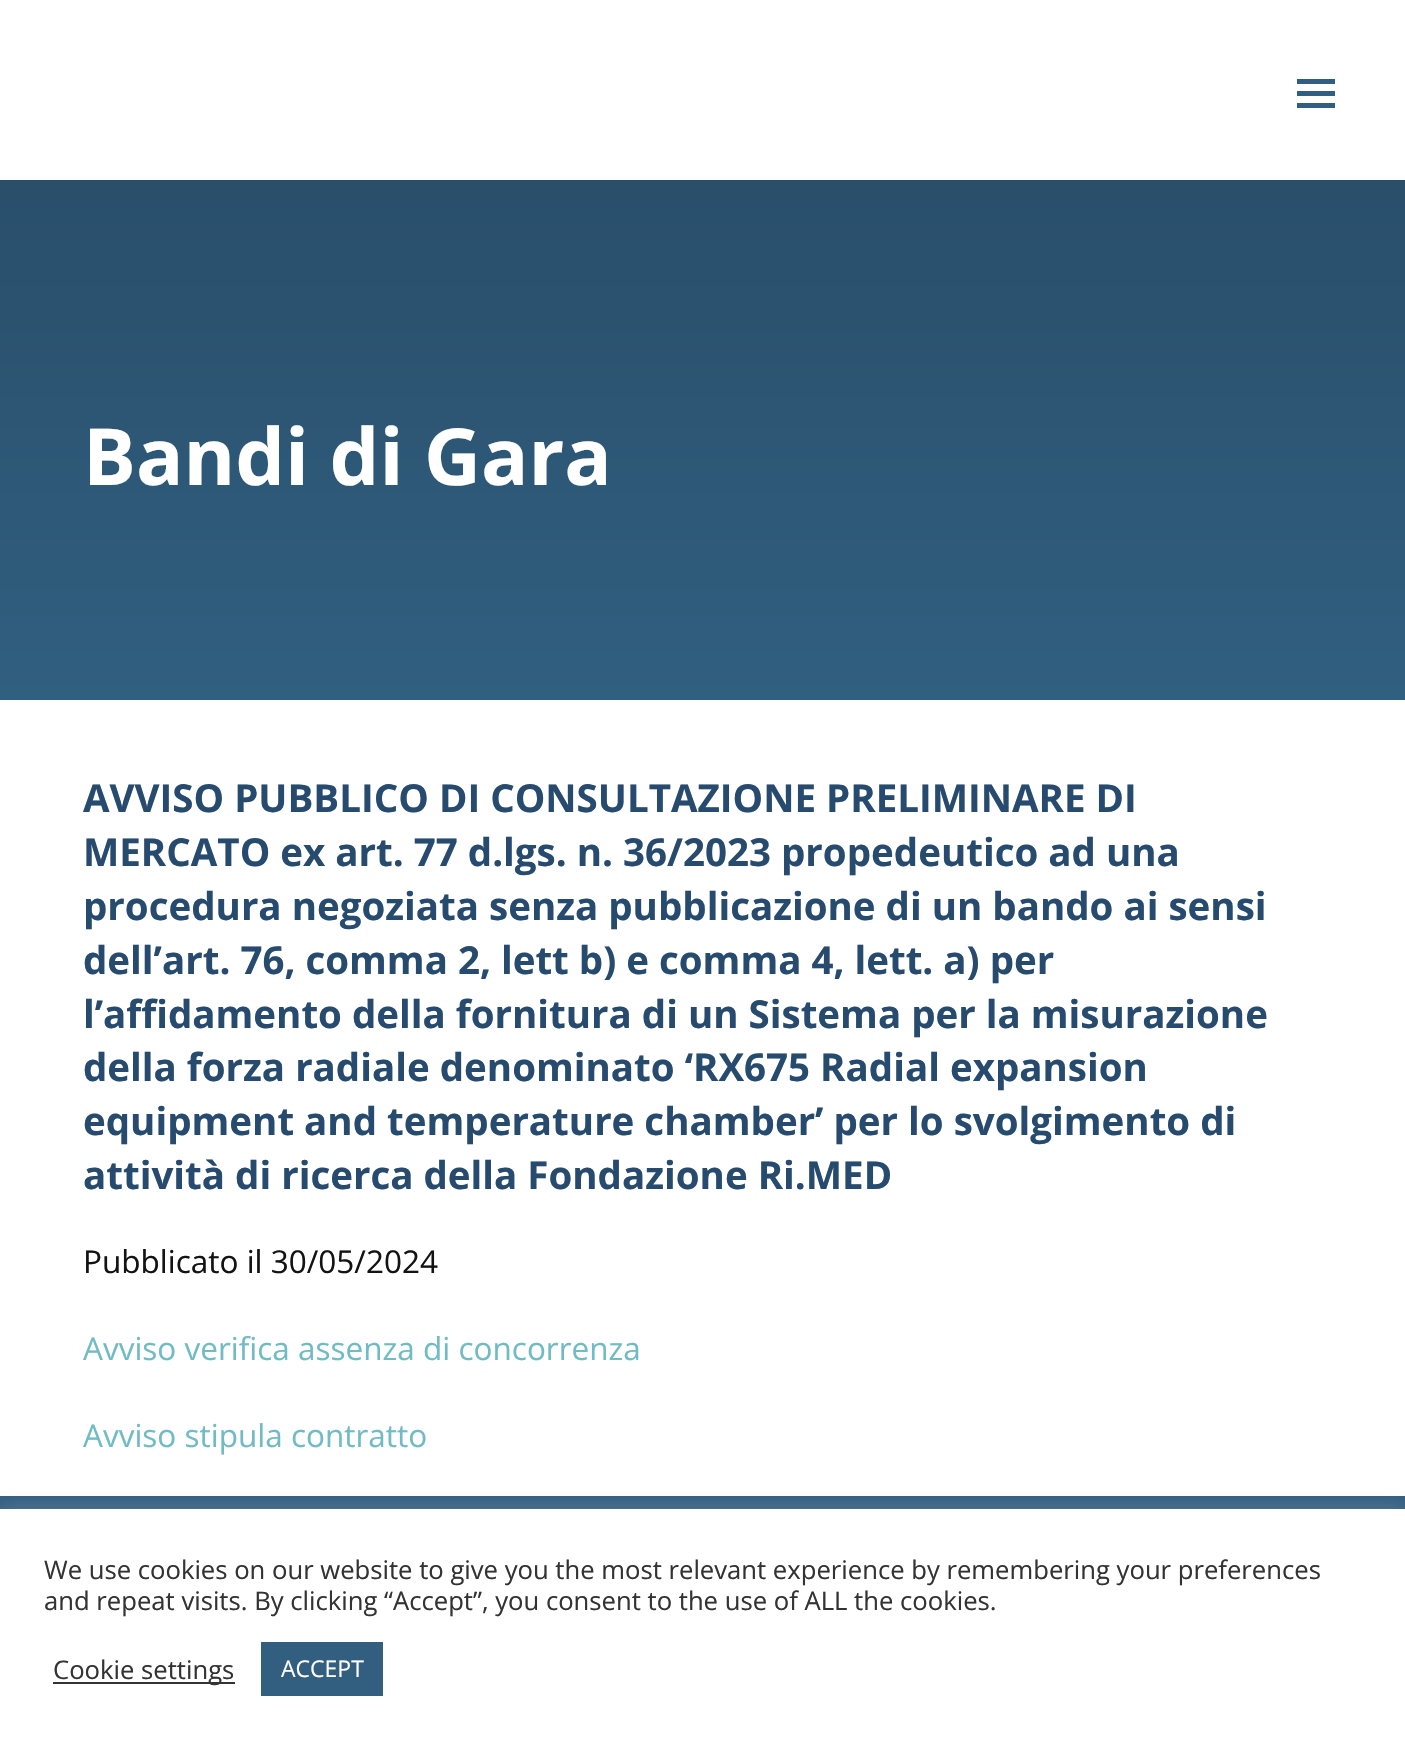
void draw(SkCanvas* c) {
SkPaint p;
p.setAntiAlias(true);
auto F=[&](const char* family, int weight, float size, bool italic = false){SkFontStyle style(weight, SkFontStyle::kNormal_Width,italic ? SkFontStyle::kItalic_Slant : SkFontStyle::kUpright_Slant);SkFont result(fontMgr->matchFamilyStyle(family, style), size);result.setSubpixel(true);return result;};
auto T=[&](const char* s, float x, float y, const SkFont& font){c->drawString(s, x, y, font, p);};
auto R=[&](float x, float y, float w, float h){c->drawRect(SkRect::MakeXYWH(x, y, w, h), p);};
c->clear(0xffffffff);
p.setColor(0xff325e82);
R(1297,91,38,5);
R(1297,79,38,5);
R(1297,103,38,5);
{
const SkColor colors[] = {0xff315f80,0xff264963};
const float stops[] = {0,1};
const SkPoint ends[] = {{703,700}, {703,0}};
p.setShader(SkGradientShader::MakeLinear(ends, colors, stops, 2, SkTileMode::kClamp));
p.setAlpha(255);
}
R(0,180,1405,520);
auto f1 = F("Open Sans",700,78.75);
p.setShader(nullptr);
p.setColor(0xffffffff);
T("Bandi di Gara",83,485,f1);
auto f2 = F("Open Sans",700,38.5);
p.setColor(0xff274b6f);
T("AVVISO PUBBLICO DI CONSULTAZIONE PRELIMINARE DI",83,812,f2);
T("MERCATO ex art. 77 d.lgs. n. 36/2023 propedeutico ad una",83,866,f2);
T("procedura negoziata senza pubblicazione di un bando ai sensi",83,920,f2);
T("dell’art. 76, comma 2, lett b) e comma 4, lett. a) per",83,974,f2);
T("l’affidamento della fornitura di un Sistema per la misurazione",83,1028,f2);
T("della forza radiale denominato ‘RX675 Radial expansion",83,1081,f2);
T("equipment and temperature chamber’ per lo svolgimento di",83,1135,f2);
T("attività di ricerca della Fondazione Ri.MED",83,1189,f2);
auto f3 = F("Open Sans",400,31.5);
p.setColor(0xff131313);
T("Pubblicato il 30/05/2024",83,1273,f3);
p.setColor(0xff71bbc4);
T("Avviso verifica assenza di concorrenza",83,1360,f3);
T("Avviso stipula contratto",83,1447,f3);
p.setColor(0xff325e82);
R(0,1496,1405,13);
p.setColor(0x4dacabab);
p.setMaskFilter(SkMaskFilter::MakeBlur(kNormal_SkBlurStyle, 9));
c->drawRect(SkRect::MakeXYWH(0,1507,1405,240),p);
p.setMaskFilter(nullptr);
p.setColor(0xffffffff);
R(0,1509,1405,239);
auto f4 = F("Open Sans",400,25.65);
p.setColor(0xff333333);
T("We use cookies on our website to give you the most relevant experience by remembering your preferences",44,1579,f4);
T("and repeat visits. By clicking “Accept”, you consent to the use of ALL the cookies.",44,1610,f4);
R(53,1682,182,2);
T("Cookie settings",53,1679,f4);
p.setColor(0xff325e80);
R(261,1642,122,54);
auto f5 = F("Open Sans",400,23);
p.setColor(0xffffffff);
T("ACCEPT",281,1677,f5);
}
